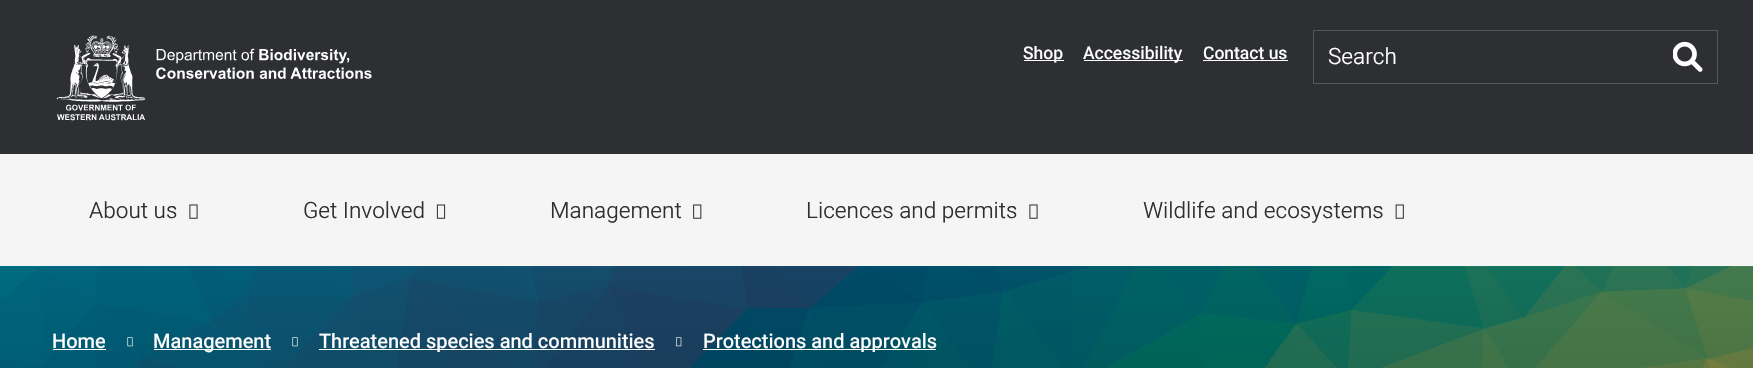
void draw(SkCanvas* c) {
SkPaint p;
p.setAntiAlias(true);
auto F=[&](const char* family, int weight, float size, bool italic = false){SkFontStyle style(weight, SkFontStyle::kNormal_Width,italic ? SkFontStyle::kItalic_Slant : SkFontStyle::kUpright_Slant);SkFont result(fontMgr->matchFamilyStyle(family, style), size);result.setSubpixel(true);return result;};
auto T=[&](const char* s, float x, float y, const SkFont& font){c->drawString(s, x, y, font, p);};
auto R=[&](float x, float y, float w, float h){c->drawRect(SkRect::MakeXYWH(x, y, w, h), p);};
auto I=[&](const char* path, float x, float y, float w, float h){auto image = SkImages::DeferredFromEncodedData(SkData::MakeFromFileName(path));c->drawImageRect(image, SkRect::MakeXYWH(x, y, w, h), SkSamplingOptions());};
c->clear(0xff2d2f32);
I("1.png",56,35,316,86);
p.setColor(0xffffffff);
R(1024,60,40,1);
auto f1 = F("Heebo",500,17.5);
T("Shop",1023,59,f1);
R(1084,60,99,1);
T("Accessibility",1083,59,f1);
T("Contact us",1203,59,f1);
R(1203,60,85,1);
p.setStroke(true);
p.setStrokeWidth(1);
p.setColor(0xff57585b);
c->drawRect(SkRect::MakeXYWH(1313.5,30.5,404,53),p);
auto f2 = F("Heebo",300,22.5);
p.setStroke(false);
p.setColor(0xffffffff);
T("Search",1328,64,f2);
I("2.png",1673,41,30,31);
p.setColor(0xfff5f5f5);
R(0,154,1753,112);
p.setColor(0xff2d2f32);
T("About us",89,218,f2);
I("3.png",189,204,9,15);
T("Get Involved",303,218,f2);
I("4.png",436,204,10,15);
T("Management",550,218,f2);
I("5.png",693,204,9,15);
T("Licences and permits",806,218,f2);
I("3.png",1029,204,9,15);
T("Wildlife and ecosystems",1143,218,f2);
I("6.png",1395,204,9,15);
I("7.png",0,266,1753,102);
auto f3 = F("Heebo",500,20);
p.setColor(0xffffffff);
T("Home",52,348,f3);
R(53,349,53,1);
I("8.png",127,337,6,10);
R(154,349,117,1);
T("Management",153,348,f3);
I("9.png",292,337,6,10);
R(319,349,336,1);
T("Threatened species and communities",319,348,f3);
I("10.png",676,337,6,10);
R(703,349,233,1);
T("Protections and approvals",703,348,f3);
}
